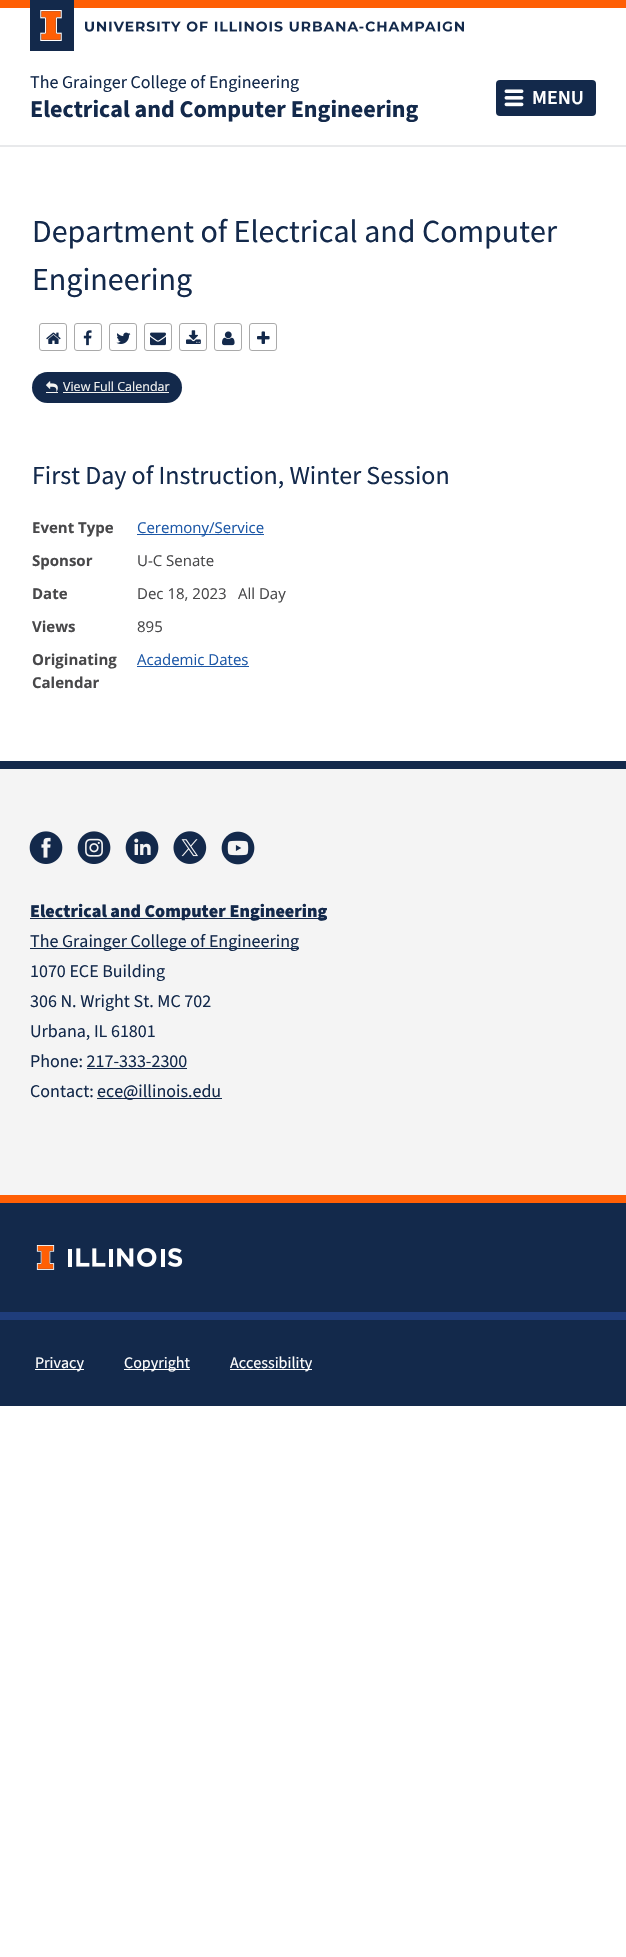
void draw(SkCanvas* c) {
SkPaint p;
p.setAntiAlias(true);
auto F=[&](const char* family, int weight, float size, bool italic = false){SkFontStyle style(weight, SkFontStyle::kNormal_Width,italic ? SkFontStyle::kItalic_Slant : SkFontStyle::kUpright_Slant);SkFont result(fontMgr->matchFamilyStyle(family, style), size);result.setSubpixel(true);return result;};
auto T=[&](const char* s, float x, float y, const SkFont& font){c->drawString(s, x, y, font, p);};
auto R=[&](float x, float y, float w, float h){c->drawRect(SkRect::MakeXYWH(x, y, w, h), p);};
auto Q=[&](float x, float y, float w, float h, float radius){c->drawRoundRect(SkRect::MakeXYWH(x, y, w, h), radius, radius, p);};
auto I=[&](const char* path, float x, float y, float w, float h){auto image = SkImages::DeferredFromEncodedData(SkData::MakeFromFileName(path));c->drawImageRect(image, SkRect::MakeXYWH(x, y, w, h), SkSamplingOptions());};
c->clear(0xffffffff);
p.setColor(0xffe8e9eb);
R(0,145,626,2);
p.setColor(0xffff5f05);
R(0,0,626,8);
p.setColor(0xff13294b);
R(30,0,44,51);
I("1.png",40,10,22,31);
I("2.png",85,21,379,11);
auto f1 = F("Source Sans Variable",400,18);
T("The Grainger College of Engineering",30,88,f1);
auto f2 = F("Source Sans Variable",700,24);
T("Electrical and Computer Engineering",30,117,f2);
Q(496,80,100,36,4);
I("3.png",504,89,20,18);
auto f3 = F("Source Sans Variable",600,20);
p.setColor(0xffffffff);
T("MENU",532,104,f3);
auto f4 = F("Source Sans Pro",400,32);
p.setColor(0xff13294b);
T("Department of Electrical and Computer",32,242,f4);
T("Engineering",32,290,f4);
p.setStroke(true);
p.setStrokeWidth(1);
p.setColor(0xffaaaaaa);
c->drawRoundRect(SkRect::MakeXYWH(39.5,323.5,27,27),2.5,2.5,p);
I("4.png",46,332,15,12);
c->drawRoundRect(SkRect::MakeXYWH(74.5,323.5,27,27),2.5,2.5,p);
I("5.png",83,330,9,16);
c->drawRoundRect(SkRect::MakeXYWH(109.5,323.5,27,27),2.5,2.5,p);
I("6.png",116,332,15,12);
c->drawRoundRect(SkRect::MakeXYWH(144.5,323.5,27,27),2.5,2.5,p);
I("7.png",150,332,16,14);
c->drawRoundRect(SkRect::MakeXYWH(179.5,323.5,27,27),2.5,2.5,p);
I("8.png",186,330,15,14);
c->drawRoundRect(SkRect::MakeXYWH(214.5,323.5,27,27),2.5,2.5,p);
I("9.png",222,331,13,15);
c->drawRoundRect(SkRect::MakeXYWH(249.5,323.5,27,27),2.5,2.5,p);
I("10.png",257,331,13,13);
p.setStroke(false);
p.setColor(0xff13294b);
Q(32,372,150,31,15.5);
I("11.png",46,381,12,11);
auto f5 = F("Open Sans",400,12.5);
p.setColor(0xfff4f4f2);
T("View Full Calendar",63,391,f5);
R(63,392,106,1);
R(46,392,12,1);
auto f6 = F("Source Sans Pro",400,26);
p.setColor(0xff13294b);
T("First Day of Instruction, Winter Session",32,484,f6);
auto f7 = F("Open Sans",700,15);
p.setColor(0xff48484a);
T("Event Type",32,533,f7);
p.setColor(0xff1d58a7);
R(137,534,127,1);
auto f8 = F("Open Sans",400,15);
T("Ceremony/Service",137,533,f8);
p.setColor(0xff48484a);
T("Sponsor",32,566,f7);
T("U-C Senate",137,566,f8);
T("Date",32,599,f7);
T("Dec 18, 2023",137,599,f8);
T("All Day",238,599,f8);
T("Views",32,632,f7);
T("895",137,632,f8);
T("Originating",32,665,f7);
T("Calendar",32,688,f7);
p.setColor(0xff1d58a7);
T("Academic Dates",137,665,f8);
R(137,666,112,1);
p.setColor(0xfff4f4f4);
R(0,769,626,426);
p.setColor(0xff13294b);
R(0,761,626,8);
I("12.png",29,831,34,33);
I("13.png",77,831,34,33);
I("14.png",125,831,34,33);
I("15.png",173,831,34,33);
I("16.png",221,831,34,34);
R(30,918,297,1);
auto f9 = F("Source Sans Variable",900,18);
T("Electrical and Computer Engineering",30,917,f9);
R(30,948,269,1);
T("The Grainger College of Engineering",30,947,f1);
T("1070 ECE Building",30,977,f1);
T("306 N. Wright St. MC 702",30,1007,f1);
T("Urbana, IL 61801",30,1037,f1);
T("Phone: 217-333-2300",30,1067,f1);
R(87,1068,100,1);
T("Contact:",30,1097,f1);
R(97,1098,125,1);
T("ece@illinois.edu",97,1097,f1);
R(0,1203,626,109);
p.setColor(0xffff5f05);
R(0,1195,626,8);
I("17.png",36,1245,147,25);
p.setColor(0xff13294b);
R(0,1320,626,86);
p.setColor(0xff1f3d7b);
R(0,1312,626,8);
p.setColor(0xffffffff);
R(35,1369,49,1);
auto f10 = F("Source Sans Variable",400,16);
T("Privacy",35,1368,f10);
R(124,1369,66,1);
T("Copyright",124,1368,f10);
R(230,1369,82,1);
T("Accessibility",230,1368,f10);
}
